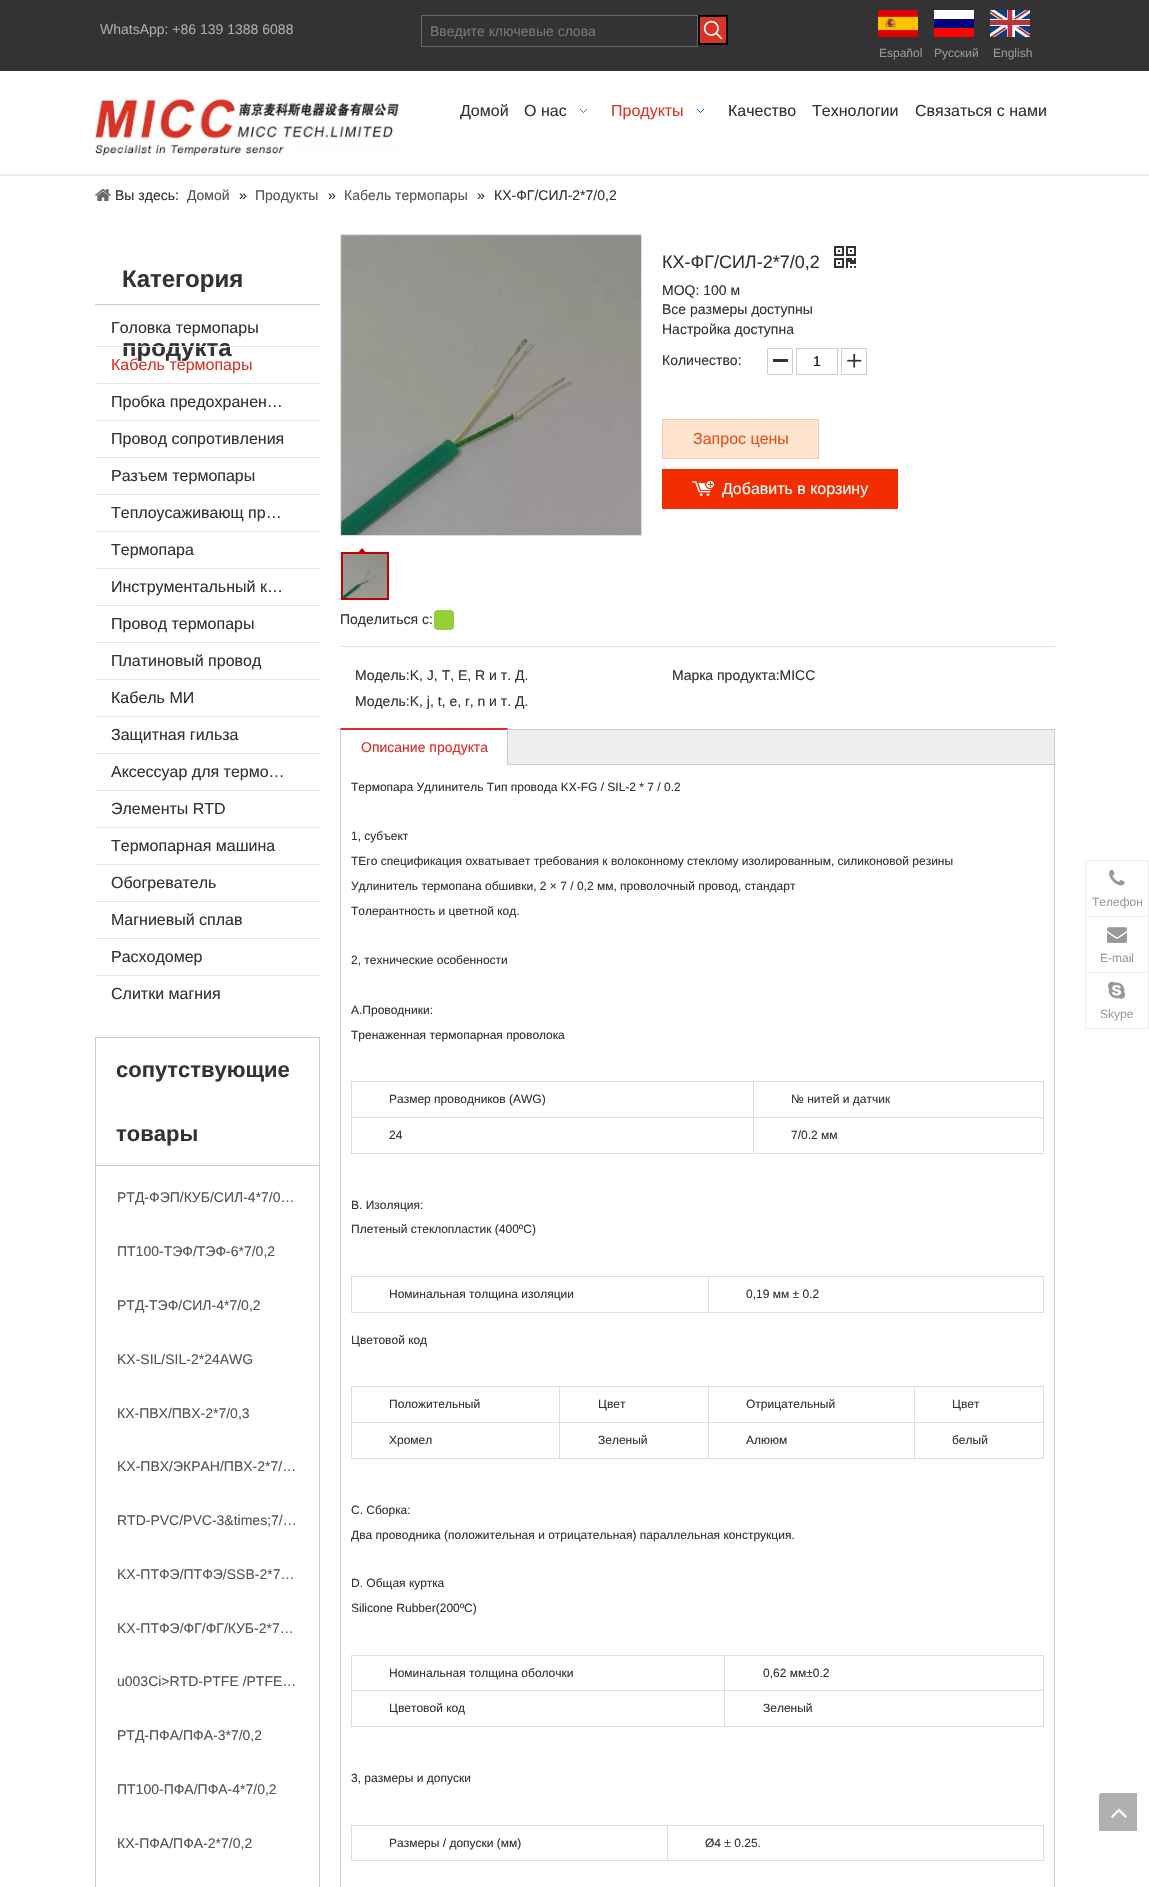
void draw(SkCanvas* c) {
SkPaint p;
p.setAntiAlias(true);
auto F=[&](const char* family, int weight, float size, bool italic = false){SkFontStyle style(weight, SkFontStyle::kNormal_Width,italic ? SkFontStyle::kItalic_Slant : SkFontStyle::kUpright_Slant);SkFont result(fontMgr->matchFamilyStyle(family, style), size);result.setSubpixel(true);return result;};
auto T=[&](const char* s, float x, float y, const SkFont& font){c->drawString(s, x, y, font, p);};
auto R=[&](float x, float y, float w, float h){c->drawRect(SkRect::MakeXYWH(x, y, w, h), p);};
auto Q=[&](float x, float y, float w, float h, float radius){c->drawRoundRect(SkRect::MakeXYWH(x, y, w, h), radius, radius, p);};
auto I=[&](const char* path, float x, float y, float w, float h){auto image = SkImages::DeferredFromEncodedData(SkData::MakeFromFileName(path));c->drawImageRect(image, SkRect::MakeXYWH(x, y, w, h), SkSamplingOptions());};
auto P=[&](const char* data, bool evenOdd = false){SkPath result = *SkParsePath::FromSVGString(data);if (evenOdd) result.setFillType(SkPathFillType::kEvenOdd);return result;};
c->clear(0xffffffff);
p.setColor(0xff333333);
R(0,0,1149,71);
auto f1 = F("Liberation Sans",400,14);
p.setColor(0xffaaaaaa);
T("WhatsApp: +86 139 1388 6088",100,34,f1);
p.setStroke(true);
p.setStrokeWidth(1);
p.setColor(0xff666666);
c->drawRect(SkRect::MakeXYWH(421.5,15.5,276,31),p);
p.setStroke(false);
p.setColor(0xff757575);
T("Введите ключевые слова",430,36,f1);
p.setColor(0xffdb3326);
c->drawRect(SkRect::MakeXYWH(699,16,28,28),p);
p.setStroke(true);
p.setStrokeWidth(2);
p.setColor(0xff000000);
c->drawRect(SkRect::MakeXYWH(699,16,28,28),p);
I("1.png",703,20,20,20);
I("2.png",878,10,40,27);
auto f2 = F("Liberation Sans",400,12);
p.setStroke(false);
p.setColor(0xff999999);
T("Español",879,57,f2);
I("3.png",934,10,40,27);
T("Pусский",934,57,f2);
I("4.png",990,10,40,27);
T("English",993,57,f2);
p.setColor(0xffeeeeee);
R(0,174,1149,2);
I("5.png",95,95,304,63);
auto f3 = F("Liberation Sans",400,16);
p.setColor(0xff333333);
T("Домой",460,116,f3);
T("О нас",524,116,f3);
I("6.png",580,109,7,4);
p.setColor(0xffdb3326);
T("Продукты",611,116,f3);
I("7.png",697,109,7,4);
p.setColor(0xff333333);
T("Качество",728,116,f3);
T("Технологии",812,116,f3);
T("Связаться с нами",915,116,f3);
I("8.png",95,189,16,12);
T("Вы здесь:",115,200,f1);
p.setColor(0xff545454);
T("Домой",187,200,f1);
p.setColor(0xff333333);
T("»",239,200,f1);
p.setColor(0xff545454);
T("Продукты",255,200,f1);
p.setColor(0xff333333);
T("»",328,200,f1);
p.setColor(0xff545454);
T("Кабель термопары",344,200,f1);
p.setColor(0xff333333);
T("»",477,200,f1);
T("КХ-ФГ/СИЛ-2*7/0,2",494,200,f1);
p.setColor(0xffcccccc);
R(95,304,225,1);
auto f4 = F("Liberation Sans",700,24);
p.setColor(0xff333333);
T("Категория",122,287,f4);
T("продукта",122,356,f4);
T("Головка термопары",111,333,f3);
p.setColor(0xffe7e7e7);
R(95,346,225,1);
p.setColor(0xffdb3326);
T("Кабель термопары",111,370,f3);
p.setColor(0xffe7e7e7);
R(95,383,225,1);
p.setColor(0xff333333);
T("Пробка предохранен…",111,407,f3);
p.setColor(0xffe7e7e7);
R(95,420,225,1);
p.setColor(0xff333333);
T("Провод сопротивления",111,444,f3);
p.setColor(0xffe7e7e7);
R(95,457,225,1);
p.setColor(0xff333333);
T("Разъем термопары",111,481,f3);
p.setColor(0xffe7e7e7);
R(95,494,225,1);
p.setColor(0xff333333);
T("Теплоусаживающ пр…",111,518,f3);
p.setColor(0xffe7e7e7);
R(95,531,225,1);
p.setColor(0xff333333);
T("Термопара",111,555,f3);
p.setColor(0xffe7e7e7);
R(95,568,225,1);
p.setColor(0xff333333);
T("Инструментальный к…",111,592,f3);
p.setColor(0xffe7e7e7);
R(95,605,225,1);
p.setColor(0xff333333);
T("Провод термопары",111,629,f3);
p.setColor(0xffe7e7e7);
R(95,642,225,1);
p.setColor(0xff333333);
T("Платиновый провод",111,666,f3);
p.setColor(0xffe7e7e7);
R(95,679,225,1);
p.setColor(0xff333333);
T("Кабель МИ",111,703,f3);
p.setColor(0xffe7e7e7);
R(95,716,225,1);
p.setColor(0xff333333);
T("Защитная гильза",111,740,f3);
p.setColor(0xffe7e7e7);
R(95,753,225,1);
p.setColor(0xff333333);
T("Аксессуар для термо…",111,777,f3);
p.setColor(0xffe7e7e7);
R(95,790,225,1);
p.setColor(0xff333333);
T("Элементы RTD",111,814,f3);
p.setColor(0xffe7e7e7);
R(95,827,225,1);
p.setColor(0xff333333);
T("Термопарная машина",111,851,f3);
p.setColor(0xffe7e7e7);
R(95,864,225,1);
p.setColor(0xff333333);
T("Обогреватель",111,888,f3);
p.setColor(0xffe7e7e7);
R(95,901,225,1);
p.setColor(0xff333333);
T("Магниевый сплав",111,925,f3);
p.setColor(0xffe7e7e7);
R(95,938,225,1);
p.setColor(0xff333333);
T("Расходомер",111,962,f3);
p.setColor(0xffe7e7e7);
R(95,975,225,1);
p.setColor(0xff333333);
T("Слитки магния",111,999,f3);
p.setStroke(true);
p.setStrokeWidth(1);
p.setColor(0xffcccccc);
c->drawRect(SkRect::MakeXYWH(95.5,1037.5,224,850),p);
p.setStroke(false);
R(96,1165,223,1);
auto f5 = F("Liberation Sans",700,22);
p.setColor(0xff333333);
T("сопутствующие",116,1077,f5);
T("товары",116,1141,f5);
p.setColor(0xff545454);
T("РТД-ФЭП/КУБ/СИЛ-4*7/0…",117,1202,f1);
T("ПТ100-ТЭФ/ТЭФ-6*7/0,2",117,1256,f1);
T("РТД-ТЭФ/СИЛ-4*7/0,2",117,1310,f1);
T("KX-SIL/SIL-2*24AWG",117,1364,f1);
T("КХ-ПВХ/ПВХ-2*7/0,3",117,1418,f1);
T("KX-ПВХ/ЭКРАН/ПВХ-2*7/…",117,1471,f1);
T("RTD-PVC/PVC-3&times;7/…",117,1525,f1);
T("KX-ПТФЭ/ПТФЭ/SSB-2*7…",117,1579,f1);
T("KX-ПТФЭ/ФГ/ФГ/КУБ-2*7…",117,1633,f1);
T("u003Ci>RTD-PTFE /PTFE…",117,1686,f1);
T("РТД-ПФА/ПФА-3*7/0,2",117,1740,f1);
T("ПТ100-ПФА/ПФА-4*7/0,2",117,1794,f1);
T("КХ-ПФА/ПФА-2*7/0,2",117,1848,f1);
auto f6 = F("Liberation Sans",400,18);
p.setColor(0xff333333);
T("КХ-ФГ/СИЛ-2*7/0,2",662,268,f6);
I("9.png",834,246,22,22);
T("MOQ: 100 м",662,295,f1);
T("Все размеры доступны",662,314,f1);
T("Настройка доступна",662,334,f1);
T("Количество:",662,365,f1);
R(773,359,15,3);
p.setStroke(true);
p.setColor(0xffcccccc);
c->drawRoundRect(SkRect::MakeXYWH(767.5,348.5,25,26),.5,.5,p);
c->drawRect(SkRect::MakeXYWH(796.5,348.5,41,26),p);
p.setStroke(false);
p.setColor(0xff000000);
T("1",813,366,f1);
I("10.png",847,353,15,15);
p.setStroke(true);
p.setColor(0xffcccccc);
c->drawRoundRect(SkRect::MakeXYWH(841.5,348.5,25,26),.5,.5,p);
p.setStroke(false);
p.setColor(0xffffe4d0);
c->drawRect(SkRect::MakeXYWH(662.5,419.5,156,39),p);
p.setStroke(true);
p.setColor(0xfff0cab6);
c->drawRect(SkRect::MakeXYWH(662.5,419.5,156,39),p);
p.setStroke(false);
p.setColor(0xffe5511d);
T("Запрос цены",693,444,f3);
p.setColor(0xfff22d00);
R(662,469,236,40);
I("11.png",692,481,22,15);
p.setColor(0xffffffff);
T("Добавить в корзину",722,494,f3);
p.setStroke(true);
p.setColor(0xffdddddd);
c->drawRect(SkRect::MakeXYWH(340.5,234.5,301,301),p);
I("12.png",341,235,300,300);
p.setStrokeWidth(2);
p.setColor(0xffc40000);
c->drawRect(SkRect::MakeXYWH(342,553,46,46),p);
p.setStroke(false);
c->drawPath(P("M367 554h-10l5-6z"),p);
I("13.png",343,554,44,44);
p.setColor(0xff333333);
T("Поделиться с:",340,624,f1);
p.setColor(0xff95d03a);
Q(434,610,20,20,4);
p.setColor(0xffdfdfdf);
R(340,646,715,1);
p.setColor(0xff333333);
T("Модель:K, J, T, E, R и т. Д.",355,680,f1);
T("Марка продукта:MICC",672,680,f1);
T("Модель:K, j, t, e, r, n и т. Д.",355,706,f1);
p.setStroke(true);
p.setStrokeWidth(1);
p.setColor(0xffcccccc);
c->drawRect(SkRect::MakeXYWH(340.5,729.5,714,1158),p);
p.setStroke(false);
p.setColor(0xffefefef);
R(508,730,546,34);
p.setColor(0xffcccccc);
R(508,764,546,1);
p.setColor(0xffffffff);
R(340,729,168,36);
p.setColor(0xffdd2d25);
c->drawPath(P("M340 728h168l-1 2h-166z"),p);
p.setColor(0xffcccccc);
c->drawPath(P("M508 728v37h-1v-35z"),p);
c->drawPath(P("M340 765v-37l1 2v35z"),p);
p.setColor(0xffdd2d25);
T("Описание продукта",361,752,f1);
p.setColor(0xff333333);
T("Термопара Удлинитель Тип провода KX-FG / SIL-2 * 7 / 0.2",351,791,f2);
T("1, субъект",351,840,f2);
T("TЕго спецификация охватывает требования к волоконному стеклому изолированным, силиконовой резины",351,865,f2);
T("Удлинитель термопана обшивки, 2 × 7 / 0,2 мм, проволочный провод, стандарт",351,890,f2);
T("Толерантность и цветной код.",351,915,f2);
T("2, технические особенности",351,964,f2);
T("А.Проводники:",351,1014,f2);
T("Тренаженная термопарная проволока",351,1039,f2);
p.setColor(0xffdddddd);
R(753,1081,291,1);
R(753,1117,291,1);
R(1043,1117,1,37);
R(753,1153,291,1);
R(753,1117,1,37);
R(351,1117,403,1);
R(753,1081,1,37);
R(351,1081,403,1);
R(351,1153,403,1);
R(351,1117,1,37);
R(351,1081,1,37);
p.setColor(0xff333333);
T("Размер проводников (AWG)",389,1103,f2);
p.setColor(0xffdddddd);
R(1043,1081,1,37);
p.setColor(0xff333333);
T("№ нитей и датчик",791,1103,f2);
T("24",389,1139,f2);
T("7/0.2 мм",791,1139,f2);
T("B. Изоляция:",351,1209,f2);
T("Плетеный стеклопластик (400ºC)",351,1233,f2);
p.setColor(0xffdddddd);
R(708,1276,336,1);
R(1043,1276,1,37);
R(708,1312,336,1);
R(708,1276,1,37);
R(351,1276,358,1);
R(351,1312,358,1);
R(351,1276,1,37);
p.setColor(0xff333333);
T("Номинальная толщина изоляции",389,1298,f2);
T("0,19 мм ± 0.2",746,1298,f2);
T("Цветовой код",351,1344,f2);
p.setColor(0xffdddddd);
R(914,1386,130,1);
R(914,1422,130,1);
R(1043,1422,1,37);
R(914,1458,130,1);
R(914,1422,1,37);
R(708,1422,207,1);
R(914,1386,1,37);
R(708,1386,207,1);
R(708,1458,207,1);
R(708,1422,1,37);
R(559,1422,150,1);
R(708,1386,1,37);
R(559,1386,150,1);
R(559,1458,150,1);
R(559,1422,1,37);
R(351,1422,209,1);
R(559,1386,1,37);
R(351,1386,209,1);
R(351,1458,209,1);
R(351,1422,1,37);
R(351,1386,1,37);
p.setColor(0xff333333);
T("Положительный",389,1408,f2);
T("Цвет",598,1408,f2);
T("Отрицательный",746,1408,f2);
p.setColor(0xffdddddd);
R(1043,1386,1,37);
p.setColor(0xff333333);
T("Цвет",952,1408,f2);
T("Хромел",389,1444,f2);
T("Зеленый",598,1444,f2);
T("Алююм",746,1444,f2);
T("белый",952,1444,f2);
T("C. Сборка:",351,1514,f2);
T("Два проводника (положительная и отрицательная) параллельная конструкция.",351,1539,f2);
T("D. Общая куртка",351,1587,f2);
T("Silicone Rubber(200ºC)",351,1612,f2);
p.setColor(0xffdddddd);
R(724,1655,320,1);
R(724,1690,320,1);
R(1043,1690,1,37);
R(724,1726,320,1);
R(724,1690,1,37);
R(351,1690,374,1);
R(724,1655,1,36);
R(351,1655,374,1);
R(351,1726,374,1);
R(351,1690,1,37);
R(351,1655,1,36);
p.setColor(0xff333333);
T("Номинальная толщина оболочки",389,1677,f2);
p.setColor(0xffdddddd);
R(1043,1655,1,36);
p.setColor(0xff333333);
T("0,62 мм±0.2",763,1677,f2);
T("Цветовой код",389,1712,f2);
T("Зеленый",763,1712,f2);
T("3, размеры и допуски",351,1782,f2);
p.setColor(0xffdddddd);
R(667,1825,377,1);
R(1043,1825,1,36);
R(667,1860,377,1);
R(667,1825,1,36);
R(351,1825,317,1);
R(351,1860,317,1);
R(351,1825,1,36);
p.setColor(0xff333333);
T("Размеры / допуски (мм)",389,1847,f2);
T("Ø4 ± 0.25.",705,1847,f2);
p.setColor(0xffeeeeee);
R(1085,860,64,1);
R(1148,860,1,56);
R(1085,860,1,56);
I("14.png",1109,869,16,17);
p.setColor(0xff999999);
T("Телефон",1092,906,f2);
p.setColor(0xffeeeeee);
R(1085,916,64,1);
R(1148,916,1,56);
R(1085,916,1,56);
I("15.png",1107,927,20,16);
p.setColor(0xff999999);
T("E-mail",1100,962,f2);
p.setStroke(true);
p.setColor(0xffeeeeee);
c->drawRect(SkRect::MakeXYWH(1085.5,972.5,63,56),p);
I("16.png",1108,981,18,18);
p.setStroke(false);
p.setColor(0xff999999);
T("Skype",1100,1018,f2);
I("17.png",1099,1793,38,38);
}
